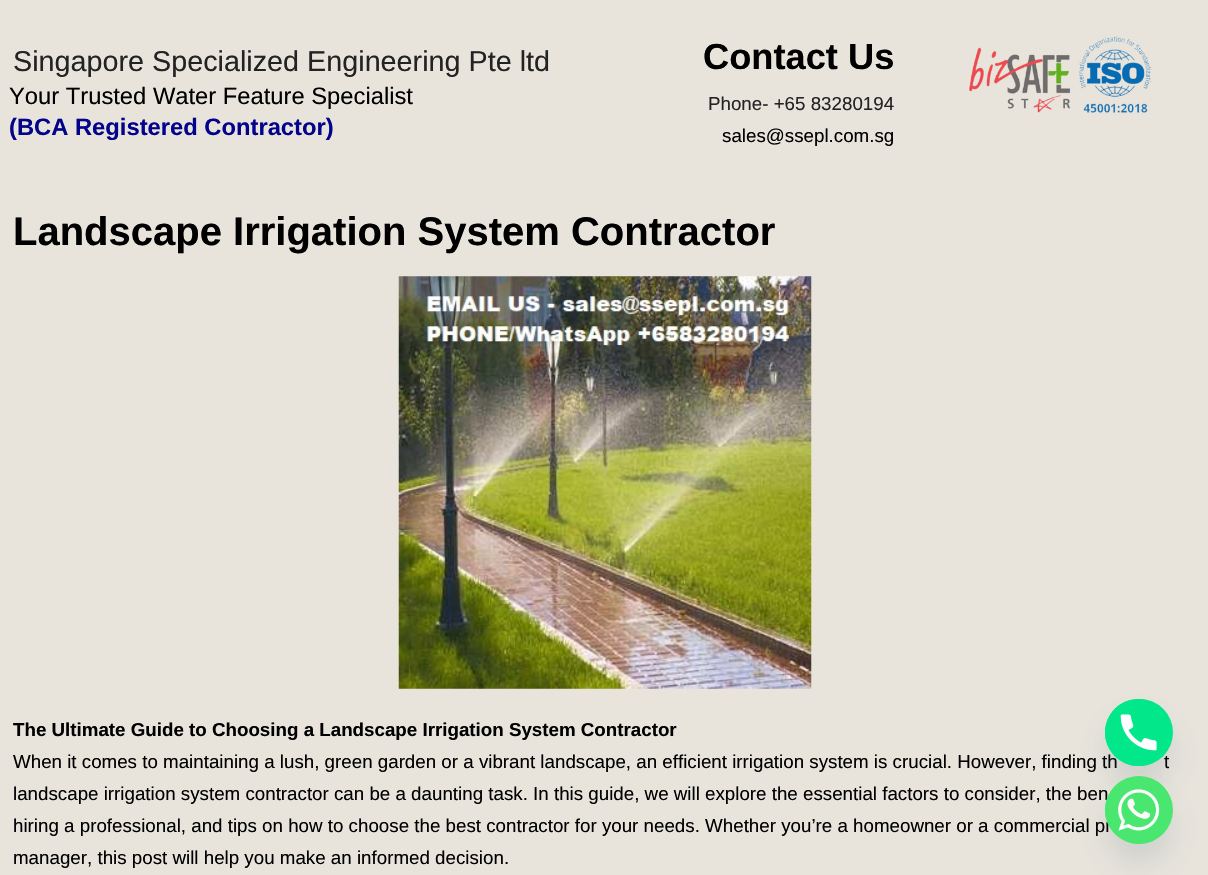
void draw(SkCanvas* c) {
SkPaint p;
p.setAntiAlias(true);
auto F=[&](const char* family, int weight, float size, bool italic = false){SkFontStyle style(weight, SkFontStyle::kNormal_Width,italic ? SkFontStyle::kItalic_Slant : SkFontStyle::kUpright_Slant);SkFont result(fontMgr->matchFamilyStyle(family, style), size);result.setSubpixel(true);return result;};
auto T=[&](const char* s, float x, float y, const SkFont& font){c->drawString(s, x, y, font, p);};
auto Q=[&](float x, float y, float w, float h, float radius){c->drawRoundRect(SkRect::MakeXYWH(x, y, w, h), radius, radius, p);};
auto I=[&](const char* path, float x, float y, float w, float h){auto image = SkImages::DeferredFromEncodedData(SkData::MakeFromFileName(path));c->drawImageRect(image, SkRect::MakeXYWH(x, y, w, h), SkSamplingOptions());};
c->clear(0xffe8e4dc);
auto f1 = F("Liberation Sans",400,28.75);
p.setColor(0xff232323);
T("Singapore Specialized Engineering Pte ltd",13,71,f1);
auto f2 = F("Liberation Sans",400,23.75);
p.setColor(0xff000000);
T("Your Trusted Water Feature Specialist",9,104,f2);
auto f3 = F("Liberation Sans",700,23.75);
p.setColor(0xff03028b);
T("(BCA Registered Contractor)",9,135,f3);
auto f4 = F("Liberation Sans",700,36.25);
p.setColor(0xff000000);
T("Contact Us",703,69,f4);
auto f5 = F("Liberation Sans",400,18.75);
p.setColor(0xff232323);
T("Phone- +65 83280194",708,110,f5);
p.setColor(0xff000000);
T("sales@ssepl.com.sg",722,142,f5);
I("1.png",969,36,183,77);
auto f6 = F("Liberation Sans",700,40);
T("Landscape Irrigation System Contractor",13,245,f6);
I("2.png",398,276,414,413);
auto f7 = F("Liberation Sans",700,18.75);
T("The Ultimate Guide to Choosing a Landscape Irrigation System Contractor",13,736,f7);
T("When it comes to maintaining a lush, green garden or a vibrant landscape, an efficient irrigation system is crucial. However, finding th",13,768,f5);
T("t",1164,768,f5);
T("landscape irrigation system contractor can be a daunting task. In this guide, we will explore the essential factors to consider, the ben",13,800,f5);
T("hiring a professional, and tips on how to choose the best contractor for your needs. Whether you’re a homeowner or a commercial pr",13,832,f5);
T("manager, this post will help you make an informed decision.",13,864,f5);
p.setColor(0x2949687e);
p.setMaskFilter(SkMaskFilter::MakeBlur(kNormal_SkBlurStyle, 15));
c->drawRoundRect(SkRect::MakeXYWH(1105,719,68,67),33.5,33.5,p);
p.setMaskFilter(nullptr);
p.setColor(0xff03e78b);
Q(1105,699,68,67,33.5);
I("3.png",1105,699,54,67);
p.setColor(0x2949687e);
p.setMaskFilter(SkMaskFilter::MakeBlur(kNormal_SkBlurStyle, 15));
c->drawRoundRect(SkRect::MakeXYWH(1105,796,68,68),34,34,p);
p.setMaskFilter(nullptr);
p.setColor(0xff49e670);
c->drawCircle(1139,810,34,p);
I("4.png",1105,776,55,68);
}
